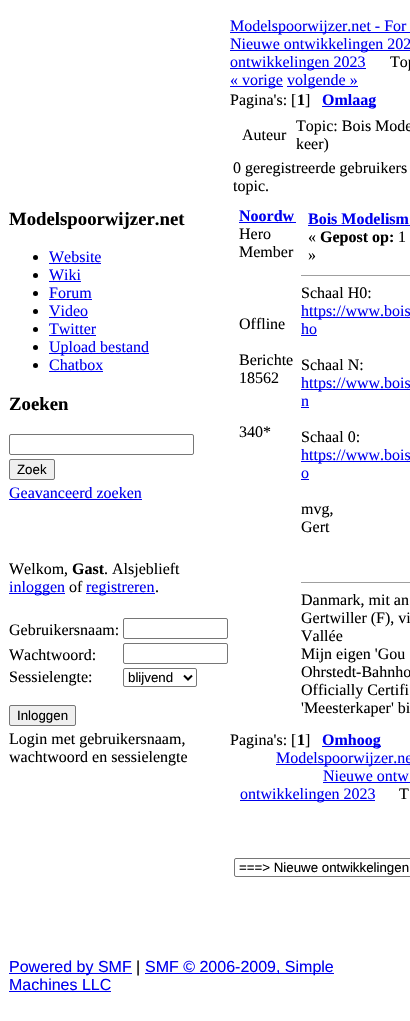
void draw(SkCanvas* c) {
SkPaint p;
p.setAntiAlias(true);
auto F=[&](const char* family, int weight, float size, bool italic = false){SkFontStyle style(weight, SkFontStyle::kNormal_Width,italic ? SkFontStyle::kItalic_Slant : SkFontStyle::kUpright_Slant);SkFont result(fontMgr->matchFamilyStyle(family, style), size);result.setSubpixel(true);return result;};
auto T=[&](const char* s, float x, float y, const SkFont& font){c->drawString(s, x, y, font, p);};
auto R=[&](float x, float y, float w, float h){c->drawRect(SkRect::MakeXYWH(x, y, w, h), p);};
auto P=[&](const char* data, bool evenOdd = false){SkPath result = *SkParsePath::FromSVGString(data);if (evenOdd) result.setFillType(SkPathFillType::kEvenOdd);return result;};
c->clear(0xffffffff);
auto f1 = F("Liberation Serif",700,18.75);
p.setColor(0xff000000);
T("Modelspoorwijzer.net",9,225,f1);
c->drawCircle(35.5,257.5,2.5,p);
auto f2 = F("Liberation Serif",400,16);
p.setColor(0xff0000ee);
T("Website",49,262,f2);
R(49,263,52,1);
p.setColor(0xff000000);
c->drawCircle(35.5,275.5,2.5,p);
p.setColor(0xff0000ee);
T("Wiki",49,280,f2);
R(49,281,32,1);
p.setColor(0xff000000);
c->drawCircle(35.5,293.5,2.5,p);
p.setColor(0xff0000ee);
T("Forum",49,298,f2);
R(49,299,43,1);
p.setColor(0xff000000);
c->drawCircle(35.5,311.5,2.5,p);
p.setColor(0xff0000ee);
T("Video",49,316,f2);
R(49,317,39,1);
p.setColor(0xff000000);
c->drawCircle(35.5,329.5,2.5,p);
p.setColor(0xff0000ee);
T("Twitter",49,334,f2);
R(49,335,47,1);
p.setColor(0xff000000);
c->drawCircle(35.5,347.5,2.5,p);
p.setColor(0xff0000ee);
R(49,353,100,1);
T("Upload bestand",49,352,f2);
p.setColor(0xff000000);
c->drawCircle(35.5,365.5,2.5,p);
p.setColor(0xff0000ee);
T("Chatbox",49,370,f2);
R(49,371,54,1);
p.setColor(0xff000000);
T("Zoeken",9,410,f1);
p.setStroke(true);
p.setStrokeWidth(1);
p.setColor(0xff767676);
c->drawRoundRect(SkRect::MakeXYWH(9.5,434.5,184,20),1.5,1.5,p);
p.setStroke(false);
p.setColor(0xffefefef);
c->drawRoundRect(SkRect::MakeXYWH(9.5,459.5,45,20),1.5,1.5,p);
p.setStroke(true);
p.setColor(0xff767676);
c->drawRoundRect(SkRect::MakeXYWH(9.5,459.5,45,20),1.5,1.5,p);
auto f3 = F("Liberation Sans",400,13.3);
p.setStroke(false);
p.setColor(0xff000000);
T("Zoek",17,474,f3);
p.setColor(0xff0000ee);
T("Geavanceerd zoeken",9,498,f2);
R(9,499,133,1);
p.setColor(0xff000000);
T("Welkom,",9,574,f2);
auto f4 = F("Liberation Serif",700,16);
T("Gast",72,574,f4);
T(". Alsjeblieft",104,574,f2);
p.setColor(0xff0000ee);
R(9,593,56,1);
T("inloggen",9,592,f2);
p.setColor(0xff000000);
T("of",69,592,f2);
p.setColor(0xff0000ee);
R(86,593,69,1);
T("registreren",86,592,f2);
p.setColor(0xff000000);
T(".",155,592,f2);
T("Gebruikersnaam:",9,635,f2);
p.setStroke(true);
p.setColor(0xff767676);
c->drawRoundRect(SkRect::MakeXYWH(123.5,618.5,104,20),1.5,1.5,p);
p.setStroke(false);
p.setColor(0xff000000);
T("Wachtwoord:",9,660,f2);
p.setStroke(true);
p.setColor(0xff767676);
c->drawRoundRect(SkRect::MakeXYWH(123.5,643.5,104,20),1.5,1.5,p);
p.setStroke(false);
p.setColor(0xff000000);
T("Sessielengte:",9,682,f2);
p.setStroke(true);
p.setColor(0xff767676);
c->drawRoundRect(SkRect::MakeXYWH(123.5,668.5,73,18),1.5,1.5,p);
p.setStrokeWidth(2);
p.setColor(0xff000000);
c->drawPath(P("M184 675.5l4 4l4-4"),p);
p.setStroke(false);
T("blijvend",128,682,f3);
p.setColor(0xffefefef);
c->drawRoundRect(SkRect::MakeXYWH(9.5,705.5,66,20),1.5,1.5,p);
p.setStroke(true);
p.setStrokeWidth(1);
p.setColor(0xff767676);
c->drawRoundRect(SkRect::MakeXYWH(9.5,705.5,66,20),1.5,1.5,p);
p.setStroke(false);
p.setColor(0xff000000);
T("Inloggen",17,720,f3);
T("Login met gebruikersnaam,",9,744,f2);
T("wachtwoord en sessielengte",9,762,f2);
p.setColor(0xff0000ee);
R(230,32,180,1);
T("Modelspoorwijzer.net - For",230,31,f2);
R(230,50,180,1);
T("Nieuwe ontwikkelingen 202",230,49,f2);
R(230,68,136,1);
T("ontwikkelingen 2023",230,67,f2);
p.setColor(0xff000000);
T("Top",390,67,f2);
p.setColor(0xff0000ee);
R(230,86,53,1);
T("« vorige",230,85,f2);
R(287,86,71,1);
T("volgende »",287,85,f2);
p.setColor(0xff000000);
T("Pagina's: [",230,105,f2);
T("1",297,105,f4);
T("]",305,105,f2);
p.setColor(0xff0000ee);
R(322,106,54,1);
T("Omlaag",322,105,f4);
p.setColor(0xff000000);
T("Auteur",242,140,f2);
T("Topic: Bois Mode",296,131,f2);
T("keer)",296,149,f2);
T("0 geregistreerde gebruikers",233,173,f2);
T("topic.",233,191,f2);
p.setColor(0xff0000ee);
T("Noordw",239,221,f4);
R(239,222,57,1);
p.setColor(0xff000000);
T("Hero",239,239,f2);
T("Member",239,257,f2);
T("Offline",239,329,f2);
T("Berichte",239,365,f2);
T("18562",239,383,f2);
T("340*",239,437,f2);
p.setColor(0xff0000ee);
T("Bois Modelism",308,224,f4);
R(308,225,102,1);
p.setColor(0xff000000);
T("«",308,242,f2);
T("Gepost op:",320,242,f4);
T("1",398,242,f2);
T("»",308,260,f2);
p.setColor(0xff9f9f9f);
R(301,275,109,1);
p.setColor(0xff000000);
T("Schaal H0:",301,298,f2);
p.setColor(0xff0000ee);
R(301,317,109,1);
T("https://www.bois",301,316,f2);
T("ho",301,334,f2);
R(301,335,16,1);
p.setColor(0xff000000);
T("Schaal N:",301,370,f2);
p.setColor(0xff0000ee);
R(301,389,109,1);
T("https://www.bois",301,388,f2);
T("n",301,406,f2);
R(301,407,8,1);
p.setColor(0xff000000);
T("Schaal 0:",301,442,f2);
p.setColor(0xff0000ee);
R(301,461,109,1);
T("https://www.bois",301,460,f2);
T("o",301,478,f2);
R(301,479,8,1);
p.setColor(0xff000000);
T("mvg,",301,514,f2);
T("Gert",301,532,f2);
p.setColor(0xff9f9f9f);
R(301,582,109,1);
p.setColor(0xff000000);
T("Danmark, mit an",301,605,f2);
T("Gertwiller (F), vi",301,623,f2);
T("Vallée",301,641,f2);
T("Mijn eigen 'Gou",301,659,f2);
T("Ohrstedt-Bahnho",301,677,f2);
T("Officially Certifi",301,695,f2);
T("'Meesterkaper' bi",301,713,f2);
T("Pagina's: [",230,745,f2);
T("1",297,745,f4);
T("]",305,745,f2);
p.setColor(0xff0000ee);
R(322,746,59,1);
T("Omhoog",322,745,f4);
R(276,764,134,1);
T("Modelspoorwijzer.ne",276,763,f2);
T("Nieuwe ontw",323,781,f2);
R(323,782,87,1);
R(240,800,135,1);
T("ontwikkelingen 2023",240,799,f2);
p.setColor(0xff000000);
T("T",399,799,f2);
p.setStroke(true);
p.setColor(0xff767676);
c->drawRoundRect(SkRect::MakeXYWH(234.5,858.5,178,18),1.5,1.5,p);
p.setStroke(false);
p.setColor(0xff000000);
T("===> Nieuwe ontwikkelingen",239,872,f3);
p.setColor(0xff0000ee);
R(9,973,123,1);
auto f5 = F("Liberation Sans",400,16);
T("Powered by SMF",9,972,f5);
p.setColor(0xff000000);
T("|",136,972,f5);
p.setColor(0xff0000ee);
R(145,973,189,1);
T("SMF © 2006-2009, Simple",145,972,f5);
T("Machines LLC",9,990,f5);
R(9,991,102,1);
}
